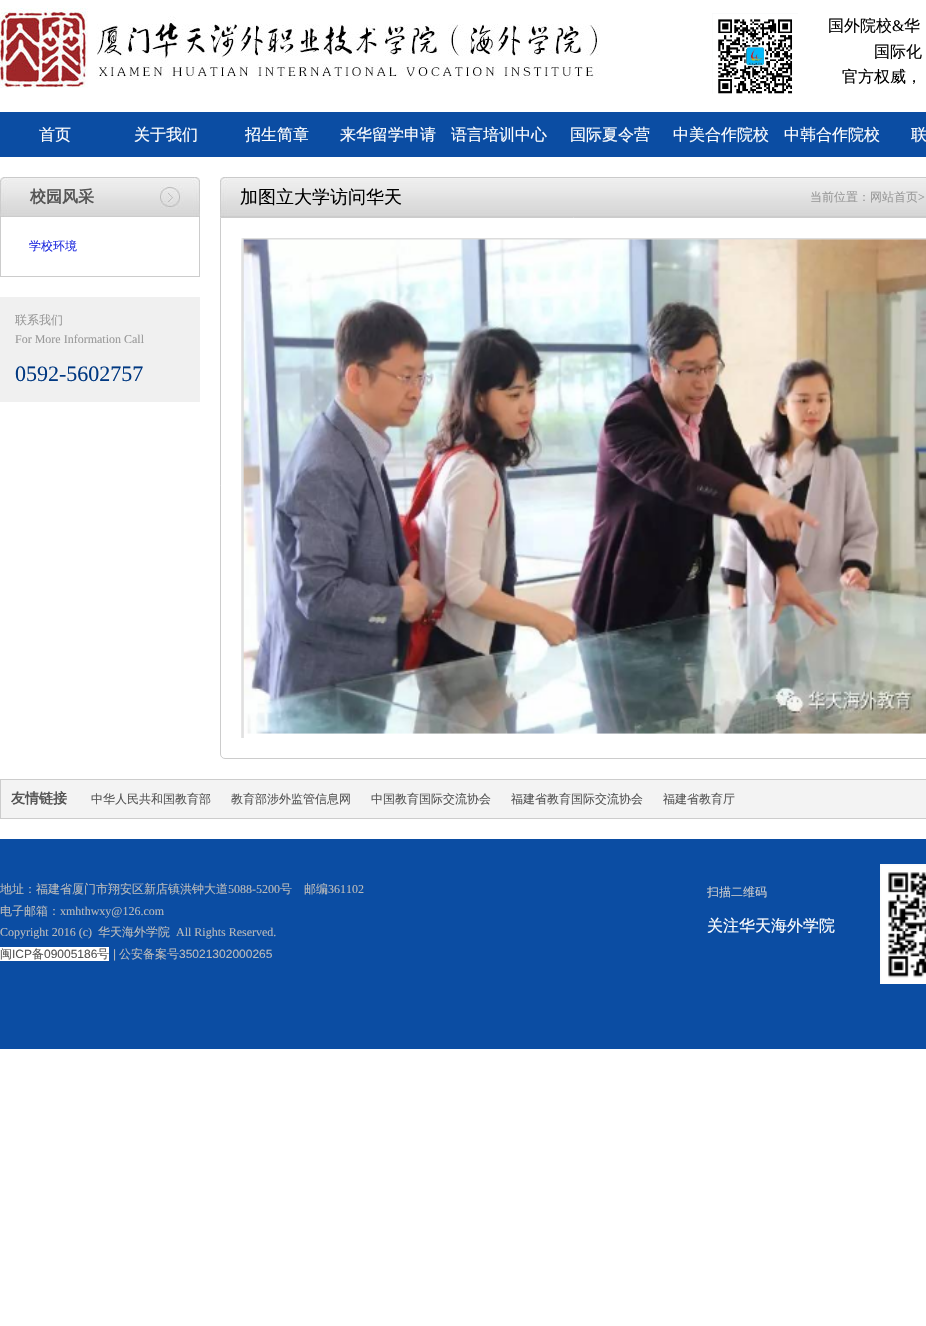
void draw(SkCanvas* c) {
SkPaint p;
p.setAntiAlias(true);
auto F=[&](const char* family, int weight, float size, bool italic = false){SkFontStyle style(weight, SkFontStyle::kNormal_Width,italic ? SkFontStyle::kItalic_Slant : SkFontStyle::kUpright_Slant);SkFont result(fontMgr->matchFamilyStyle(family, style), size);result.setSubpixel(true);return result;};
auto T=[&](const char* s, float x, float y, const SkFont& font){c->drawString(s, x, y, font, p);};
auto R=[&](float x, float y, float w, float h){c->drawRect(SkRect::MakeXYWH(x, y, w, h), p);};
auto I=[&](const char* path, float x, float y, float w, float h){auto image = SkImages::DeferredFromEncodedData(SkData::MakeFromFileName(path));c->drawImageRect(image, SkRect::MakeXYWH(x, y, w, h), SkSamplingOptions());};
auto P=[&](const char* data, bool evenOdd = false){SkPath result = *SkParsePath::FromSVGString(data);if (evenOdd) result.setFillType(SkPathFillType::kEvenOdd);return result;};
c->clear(0xffffffff);
I("1.png",0,8,600,80);
I("2.png",712,13,86,81);
auto f1 = F("WenQuanYi Zen Hei",500,16);
p.setColor(0xff000000);
T("国外院校",828,31,f1);
auto f2 = F("Liberation Serif",400,16);
T("&",892,31,f2);
T("华",904,31,f1);
T("国际化",874,57,f1);
T("官方权威，",842,82,f1);
p.setColor(0xff0b4da3);
R(0,112,926,45);
p.setColor(0xffffffff);
T("首页",39,140,f1);
T("关于我们",134,140,f1);
T("招生简章",245,140,f1);
T("来华留学申请",340,140,f1);
T("语言培训中心",451,140,f1);
T("国际夏令营",570,140,f1);
T("中美合作院校",673,140,f1);
T("中韩合作院校",784,140,f1);
T("联",911,140,f1);
I("3.png",0,177,200,40);
auto f3 = F("WenQuanYi Zen Hei",700,16);
p.setColor(0xff555555);
T("校园风采",30,202,f3);
p.setColor(0xffcccccc);
R(199,217,1,60);
R(0,276,200,1);
R(0,217,1,60);
auto f4 = F("WenQuanYi Zen Hei",500,12);
p.setColor(0xff222edf);
T("学校环境",29,250,f4);
p.setColor(0xfff0f0f0);
R(0,297,200,105);
p.setColor(0xff999999);
T("联系我们",15,324,f4);
auto f5 = F("Liberation Serif",400,12);
T("For More Information Call",15,343,f5);
auto f6 = F("Liberation Serif",400,22);
p.setColor(0xff003881);
T("0592-5602757",15,381,f6);
I("4.png",220,177,706,40);
auto f7 = F("WenQuanYi Zen Hei",500,18);
p.setColor(0xff000000);
T("加图立大学访问华天",240,203,f7);
p.setColor(0xff999999);
T("当前位置：网站首页",810,201,f4);
T(">",918,201,f5);
p.setStroke(true);
p.setStrokeWidth(1);
p.setColor(0xffcccccc);
c->drawPath(P("M220.5 217.5h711v536.5c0 2.5-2 4.5-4.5 4.5h-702c-2.5 0-4.5-2-4.5-4.5z"),p);
I("5.png",241,238,685,500);
p.setStroke(false);
p.setColor(0xfff3f3f3);
c->drawRect(SkRect::MakeXYWH(.5,779.5,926,39),p);
p.setStroke(true);
p.setColor(0xffcccccc);
c->drawRect(SkRect::MakeXYWH(.5,779.5,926,39),p);
auto f8 = F("WenQuanYi Zen Hei",700,14);
p.setStroke(false);
p.setColor(0xff555555);
T("友情链接",11,803,f8);
T("中华人民共和国教育部",91,803,f4);
T("教育部涉外监管信息网",231,803,f4);
T("中国教育国际交流协会",371,803,f4);
T("福建省教育国际交流协会",511,803,f4);
T("福建省教育厅",663,803,f4);
p.setColor(0xff0b4da3);
R(0,839,926,210);
p.setColor(0xffbbbbbb);
T("地址：福建省厦门市翔安区新店镇洪钟大道",0,893,f4);
T("5088-5200",228,893,f5);
T("号　邮编",280,893,f4);
T("361102",328,893,f5);
T("电子邮箱：",0,915,f4);
T("xmhthwxy@126.com",60,915,f5);
T("Copyright 2016 (c)",0,936,f5);
T("华天海外学院",98,936,f4);
T("All Rights Reserved.",176,936,f5);
p.setColor(0xffffffff);
R(0,947,109,14);
p.setColor(0xff555555);
T("闽",0,958,f4);
auto f9 = F("Liberation Sans",400,12);
T("ICP",12,958,f9);
T("备",32,958,f4);
T("09005186",44,958,f9);
T("号",97,958,f4);
p.setColor(0xffbbbbbb);
T("|",113,958,f9);
T("公安备案号",119,958,f4);
T("35021302000265",179,958,f9);
p.setColor(0xffcccccc);
T("扫描二维码",707,896,f4);
p.setColor(0xffffffff);
T("关注华天海外学院",707,931,f1);
I("6.png",880,864,46,120);
}
